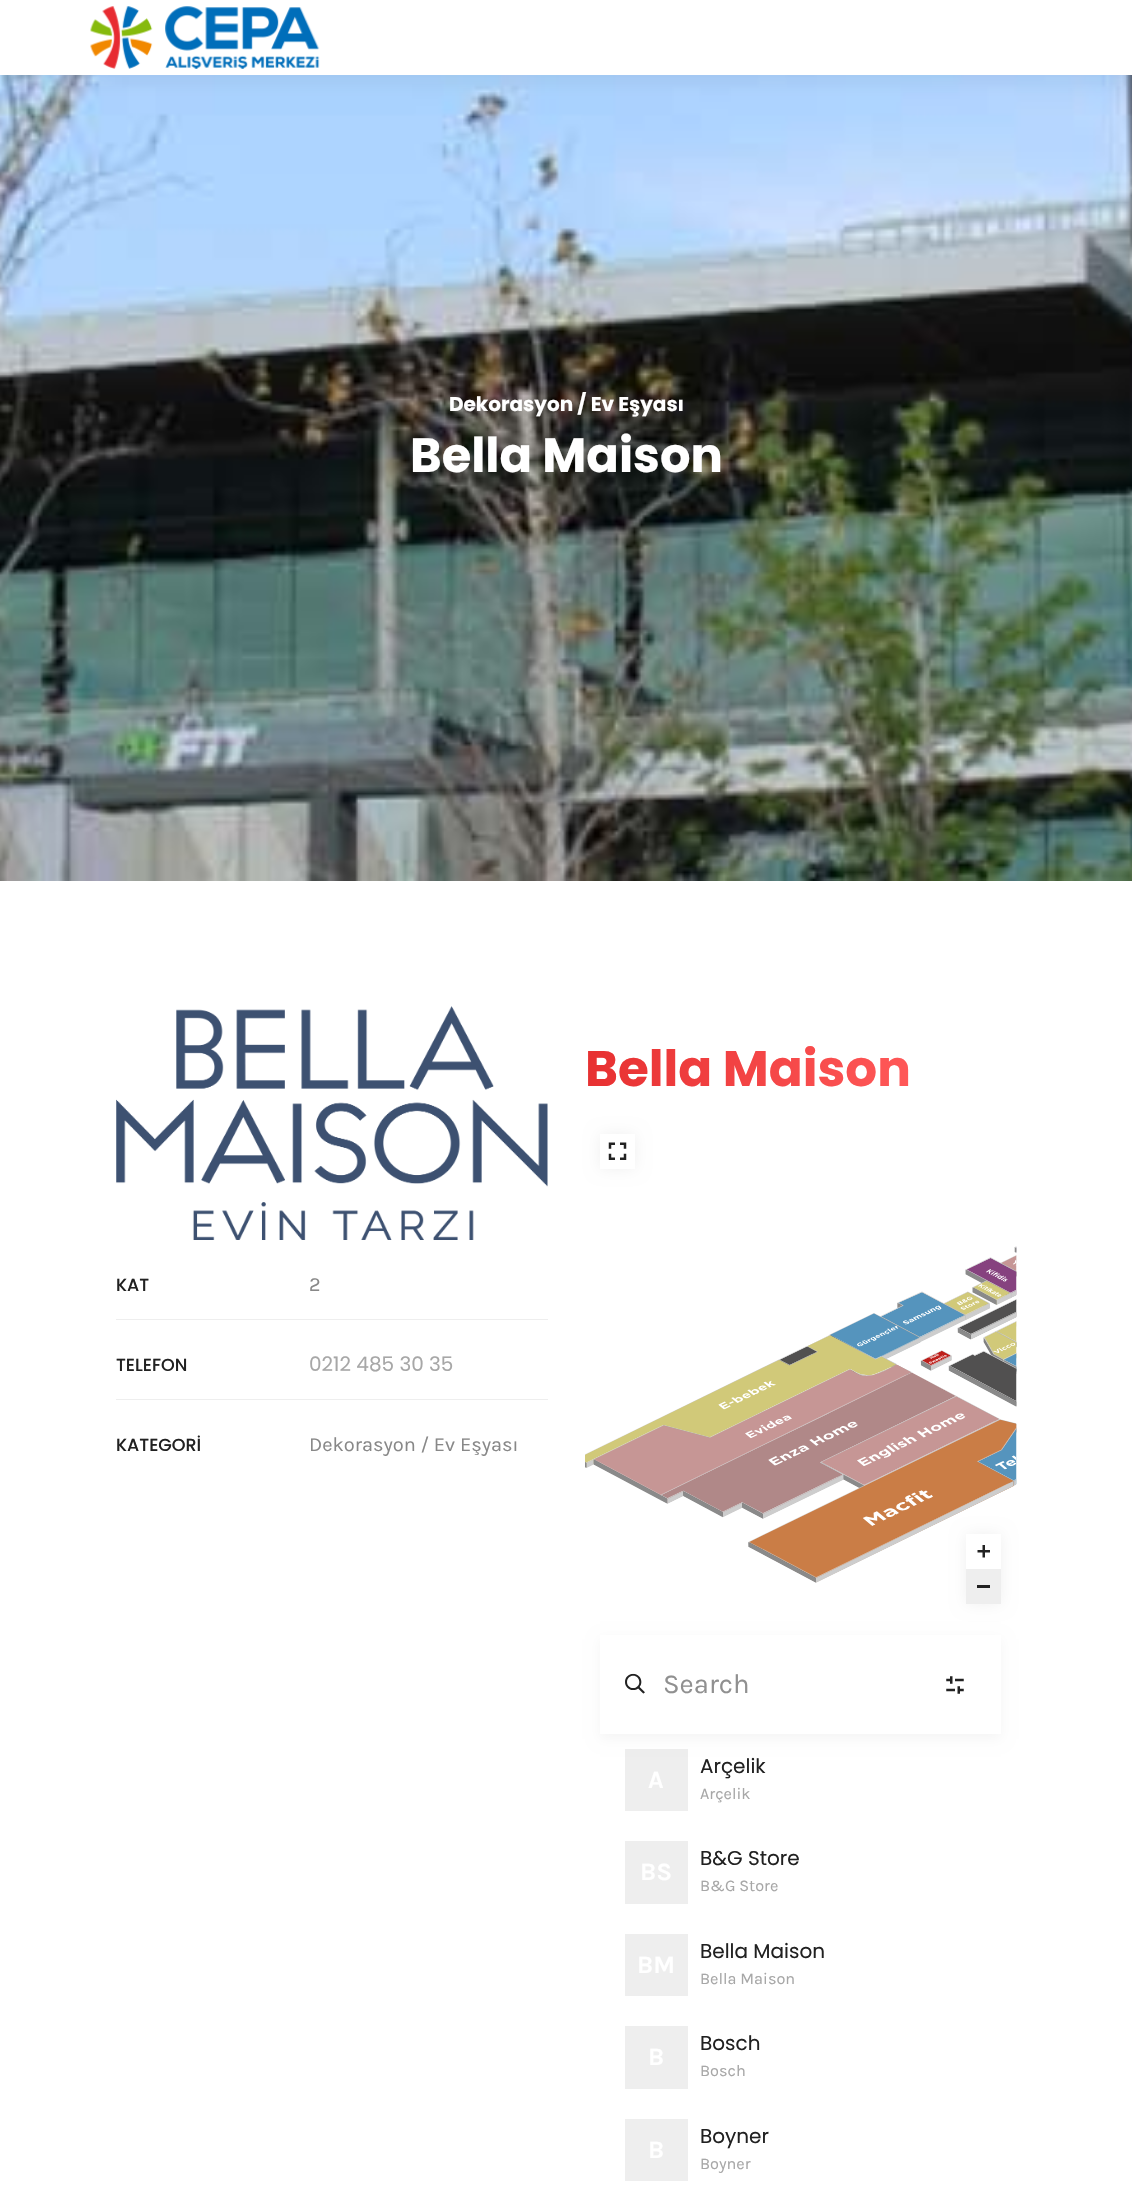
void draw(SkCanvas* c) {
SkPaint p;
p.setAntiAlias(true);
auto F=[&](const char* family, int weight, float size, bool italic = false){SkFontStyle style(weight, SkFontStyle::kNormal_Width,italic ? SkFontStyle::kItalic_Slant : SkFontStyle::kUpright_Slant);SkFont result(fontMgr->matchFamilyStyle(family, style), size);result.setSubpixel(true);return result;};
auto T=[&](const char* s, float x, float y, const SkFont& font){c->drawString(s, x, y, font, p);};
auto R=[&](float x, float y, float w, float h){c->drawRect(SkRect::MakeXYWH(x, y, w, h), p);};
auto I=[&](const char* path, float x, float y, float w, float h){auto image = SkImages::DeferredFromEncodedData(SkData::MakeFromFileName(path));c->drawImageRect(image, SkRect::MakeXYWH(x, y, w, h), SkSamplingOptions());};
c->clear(0xffffffff);
I("2.png",0,75,1132,806);
p.setColor(0x121f1f1f);
p.setMaskFilter(SkMaskFilter::MakeBlur(kNormal_SkBlurStyle, 9.5));
c->drawRect(SkRect::MakeXYWH(6,6,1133,75),p);
p.setMaskFilter(nullptr);
p.setColor(0xffffffff);
R(0,0,1132,75);
I("1.png",90,6,230,63);
auto f1 = F("Poppins",700,20);
T("Dekorasyon / Ev Eşyası",449,411,f1);
auto f2 = F("Poppins",700,48);
T("Bella Maison",410,472,f2);
I("3.png",116,1006,432,234);
p.setColor(0xffeeeeee);
R(116,1319,432,1);
auto f3 = F("Poppins",500,17.5);
p.setColor(0xff212121);
T("KAT",116,1291,f3);
auto f4 = F("Karla",400,20);
p.setColor(0xff888888);
T("2",309,1291,f4);
p.setColor(0xffeeeeee);
R(116,1399,432,1);
p.setColor(0xff212121);
T("TELEFON",116,1371,f3);
auto f5 = F("Poppins",400,20);
p.setColor(0xffa7a7a7);
T("0212 485 30 35",309,1371,f5);
p.setColor(0xff212121);
T("KATEGORİ",116,1451,f3);
p.setColor(0xff888888);
T("Dekorasyon / Ev Eşyası",309,1451,f4);
auto f6 = F("Poppins",700,50);
{
const SkColor colors[] = {0xffe73031,0xffff5858};
const float stops[] = {0,1};
const SkPoint ends[] = {{585,1069}, {911,1069}};
p.setShader(SkGradientShader::MakeLinear(ends, colors, stops, 2, SkTileMode::kClamp));
p.setAlpha(255);
}
T("Bella Maison",585,1086,f6);
p.setShader(nullptr);
p.setColor(0x0f000000);
p.setMaskFilter(SkMaskFilter::MakeBlur(kNormal_SkBlurStyle, 7.5));
c->drawRect(SkRect::MakeXYWH(600,1134,35,35),p);
p.setMaskFilter(nullptr);
p.setColor(0xffffffff);
R(600,1134,35,35);
I("4.png",608,1142,19,18);
I("5.png",585,1246,432,337);
p.setColor(0x0f000000);
p.setMaskFilter(SkMaskFilter::MakeBlur(kNormal_SkBlurStyle, 7.5));
c->drawRect(SkRect::MakeXYWH(966,1534,35,70),p);
p.setMaskFilter(nullptr);
p.setColor(0xffffffff);
R(966,1534,35,35);
I("6.png",977,1545,13,13);
p.setColor(0xffeeeeee);
R(966,1569,35,35);
p.setColor(0xff222222);
R(977,1585,13,3);
p.setColor(0xffeeeeee);
R(625,1749,63,62);
p.setColor(0x0a000000);
p.setMaskFilter(SkMaskFilter::MakeBlur(kNormal_SkBlurStyle, 6));
c->drawRect(SkRect::MakeXYWH(600,1639,401,100),p);
p.setMaskFilter(nullptr);
p.setColor(0xffffffff);
R(600,1635,401,99);
I("7.png",625,1673,20,21);
auto f7 = F("Karla",400,27.5);
p.setColor(0xff909090);
T("Search",663,1693,f7);
I("8.png",946,1676,18,18);
auto f8 = F("Karla",700,25);
p.setColor(0xffffffff);
T("A",648,1788,f8);
p.setColor(0xff212121);
T("Arçelik",700,1773,f5);
auto f9 = F("Karla",400,16.25);
p.setColor(0xffa7a7a7);
T("Arçelik",700,1799,f9);
p.setColor(0xff212121);
T("B&G Store",700,1865,f5);
p.setColor(0xffeeeeee);
R(625,1841,63,63);
p.setColor(0xffffffff);
T("BS",640,1880,f8);
p.setColor(0xffa7a7a7);
T("B&G Store",700,1891,f9);
p.setColor(0xff212121);
T("Bella Maison",700,1958,f5);
p.setColor(0xffeeeeee);
R(625,1934,63,62);
p.setColor(0xffffffff);
T("BM",637,1973,f8);
p.setColor(0xffa7a7a7);
T("Bella Maison",700,1984,f9);
p.setColor(0xff212121);
T("Bosch",700,2050,f5);
p.setColor(0xffeeeeee);
R(625,2026,63,63);
p.setColor(0xffffffff);
T("B",648,2065,f8);
p.setColor(0xffa7a7a7);
T("Bosch",700,2076,f9);
p.setColor(0xffeeeeee);
R(625,2119,63,62);
p.setColor(0xffffffff);
T("B",648,2158,f8);
p.setColor(0xff212121);
T("Boyner",700,2143,f5);
p.setColor(0xffa7a7a7);
T("Boyner",700,2169,f9);
}
